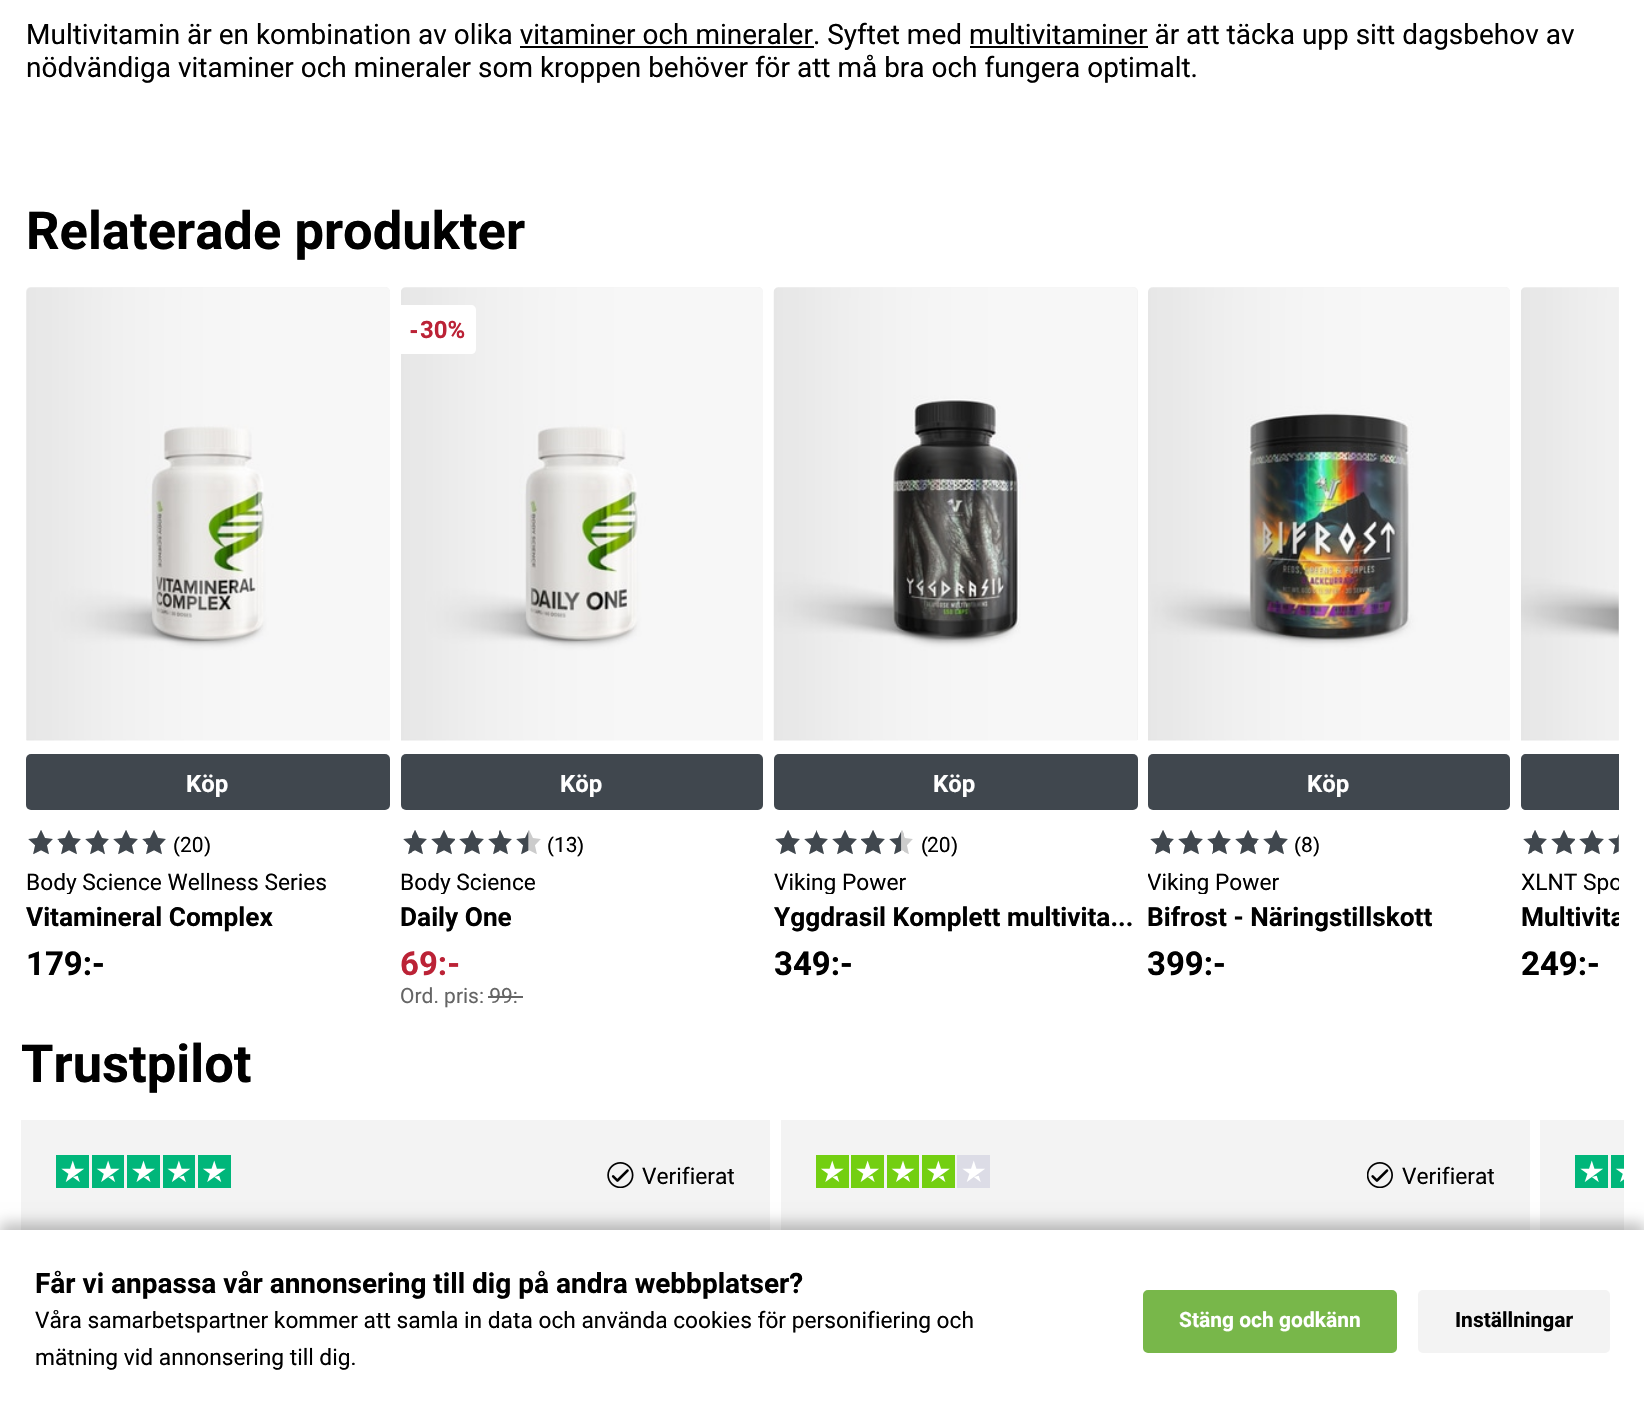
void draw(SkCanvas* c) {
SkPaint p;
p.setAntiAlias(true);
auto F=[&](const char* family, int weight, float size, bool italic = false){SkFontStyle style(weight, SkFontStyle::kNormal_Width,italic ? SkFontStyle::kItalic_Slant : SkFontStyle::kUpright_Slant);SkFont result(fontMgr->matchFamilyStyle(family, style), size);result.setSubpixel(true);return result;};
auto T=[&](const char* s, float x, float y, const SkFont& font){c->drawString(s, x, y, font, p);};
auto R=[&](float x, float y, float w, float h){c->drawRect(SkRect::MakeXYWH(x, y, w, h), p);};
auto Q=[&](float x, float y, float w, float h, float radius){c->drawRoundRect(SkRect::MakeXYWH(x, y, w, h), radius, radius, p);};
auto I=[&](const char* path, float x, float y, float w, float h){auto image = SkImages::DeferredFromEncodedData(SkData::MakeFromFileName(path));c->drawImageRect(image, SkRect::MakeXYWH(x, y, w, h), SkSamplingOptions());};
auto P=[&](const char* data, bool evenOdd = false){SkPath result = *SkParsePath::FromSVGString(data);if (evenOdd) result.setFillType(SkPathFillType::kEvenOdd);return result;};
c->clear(0xffffffff);
auto f1 = F("Roboto",400,28);
p.setColor(0xff000000);
T("Multivitamin är en kombination av olika vitaminer och mineraler. Syftet med multivitaminer är att täcka upp sitt dagsbehov av",26,44,f1);
R(520,46,294,2);
R(970,46,178,2);
T("nödvändiga vitaminer och mineraler som kroppen behöver för att må bra och fungera optimalt.",26,77,f1);
auto f2 = F("Roboto",700,52.5);
T("Relaterade produkter",26,249,f2);
p.setColor(0xfff3f3f3);
c->drawPath(P("M31 287h354c3 0 5 2 5 5v448h-364v-448c0-3 2-5 5-5z"),p);
I("1.png",26,287,364,454);
p.setColor(0xff40474e);
Q(26,754,364,56,5);
auto f3 = F("Roboto",700,24);
p.setColor(0xffffffff);
T("Köp",186,792,f3);
I("2.png",28,830,138,24);
I("3.png",28,830,138,25);
auto f4 = F("Liberation Sans",400,21);
p.setColor(0xff000000);
T("(",173,852,f4);
auto f5 = F("Roboto",400,21);
T("20",180,852,f5);
T(")",204,852,f4);
c->save();
c->clipRect(SkRect::MakeXYWH(26,868,364,26));
auto f6 = F("Roboto",400,22.75);
T("Body Science Wellness Series",26,890,f6);
c->restore();
auto f7 = F("Roboto",700,26.25);
T("Vitamineral Complex",26,926,f7);
auto f8 = F("Roboto",700,33);
T("179:-",26,975,f8);
p.setColor(0xfff3f3f3);
c->drawPath(P("M406 287h352c3 0 5 2 5 5v448h-362v-448c0-3 2-5 5-5z"),p);
I("4.png",401,287,362,454);
p.setColor(0xffffffff);
c->drawPath(P("M401 305h70c3 0 5 2 5 5v39c0 3-2 5-5 5h-70z"),p);
auto f9 = F("Noto Sans",700,24);
p.setColor(0xffbb2236);
T("-",410,338,f9);
T("30%",420,338,f3);
p.setColor(0xff40474e);
Q(401,754,362,56,5);
p.setColor(0xffffffff);
T("Köp",560,792,f3);
I("5.png",403,830,138,24);
I("6.png",403,830,126,25);
p.setColor(0xff000000);
T("(",547,852,f4);
T("13",554,852,f5);
T(")",577,852,f4);
c->save();
c->clipRect(SkRect::MakeXYWH(401,868,362,26));
T("Body Science",400,890,f6);
c->restore();
T("Daily One",400,926,f7);
p.setColor(0xffbb2236);
T("69:-",400,975,f8);
p.setColor(0xff656565);
T("Ord. pris: 99:",400,1003,f5);
R(488,996,35,2);
p.setColor(0xfff3f3f3);
c->drawPath(P("M779 287h354c3 0 5 2 5 5v448h-364v-448c0-3 2-5 5-5z"),p);
I("7.png",773,287,364,454);
p.setColor(0xff40474e);
Q(774,754,364,56,5);
p.setColor(0xffffffff);
T("Köp",933,792,f3);
I("8.png",775,830,138,24);
I("9.png",775,830,127,25);
p.setColor(0xff000000);
T("(",921,852,f4);
T("20",927,852,f5);
T(")",951,852,f4);
c->save();
c->clipRect(SkRect::MakeXYWH(774,868,364,26));
T("Viking Power",774,890,f6);
c->restore();
T("Yggdrasil Komplett multivita...",774,926,f7);
T("349:-",774,975,f8);
p.setColor(0xfff3f3f3);
c->drawPath(P("M1153 287h352c3 0 5 2 5 5v448h-362v-448c0-3 2-5 5-5z"),p);
I("10.png",1148,287,362,454);
p.setColor(0xff40474e);
Q(1148,754,362,56,5);
p.setColor(0xffffffff);
T("Köp",1307,792,f3);
I("11.png",1150,830,138,24);
I("12.png",1150,830,138,25);
p.setColor(0xff000000);
T("(",1294,852,f4);
T("8",1301,852,f5);
T(")",1313,852,f4);
c->save();
c->clipRect(SkRect::MakeXYWH(1148,868,362,26));
T("Viking Power",1147,890,f6);
c->restore();
T("Bifrost - Näringstillskott",1147,926,f7);
T("399:-",1147,975,f8);
p.setColor(0xfff3f3f3);
c->drawPath(P("M1526 287h93v453h-98v-448c0-3 2-5 5-5z"),p);
I("13.png",1521,287,98,454);
p.setColor(0xff40474e);
c->drawPath(P("M1526 754h93v56h-93c-3 0-5-2-5-5v-46c0-3 2-5 5-5z"),p);
I("14.png",1523,830,96,24);
I("15.png",1523,830,96,25);
c->save();
c->clipRect(SkRect::MakeXYWH(1521,868,98,26));
p.setColor(0xff000000);
T("XLNT Spo",1521,890,f6);
c->restore();
c->save();
c->clipRect(SkRect::MakeXYWH(1521,900,98,35));
T("Multivita",1521,926,f7);
c->restore();
T("249:-",1521,975,f8);
T("Trustpilot",21,1082,f2);
p.setColor(0xfff3f3f3);
R(21,1120,749,110);
I("16.png",56,1155,175,33);
I("17.png",607,1162,27,26);
p.setColor(0xff000000);
T("Verifierat",642,1184,f6);
p.setColor(0xfff3f3f3);
R(781,1120,749,110);
I("18.png",816,1155,174,33);
I("19.png",1367,1162,26,26);
p.setColor(0xff000000);
T("Verifierat",1402,1184,f6);
p.setColor(0xfff3f3f3);
R(1540,1120,84,110);
I("20.png",1575,1155,49,33);
p.setColor(0x40000000);
p.setMaskFilter(SkMaskFilter::MakeBlur(kNormal_SkBlurStyle, 7));
c->drawRect(SkRect::MakeXYWH(0,1223,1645,181),p);
p.setMaskFilter(nullptr);
p.setColor(0xffffffff);
R(0,1230,1644,180);
auto f10 = F("Roboto",700,28);
p.setColor(0xff000000);
T("Får vi anpassa vår annonsering till dig på andra webbplatser?",35,1293,f10);
T("Våra samarbetspartner kommer att samla in data och använda cookies för personifiering och",35,1328,f6);
T("mätning vid annonsering till dig.",35,1365,f6);
p.setColor(0xff78b74a);
c->drawRoundRect(SkRect::MakeXYWH(1144,1291,252,61),4,4,p);
p.setStroke(true);
p.setStrokeWidth(2);
c->drawRoundRect(SkRect::MakeXYWH(1144,1291,252,61),4,4,p);
auto f11 = F("Roboto",700,21);
p.setStroke(false);
p.setColor(0xffffffff);
T("Stäng och godkänn",1179,1327,f11);
p.setColor(0xfff3f3f3);
c->drawRoundRect(SkRect::MakeXYWH(1419,1291,190,61),4,4,p);
p.setStroke(true);
c->drawRoundRect(SkRect::MakeXYWH(1419,1291,190,61),4,4,p);
p.setStroke(false);
p.setColor(0xff000000);
T("Inställningar",1455,1327,f11);
}
